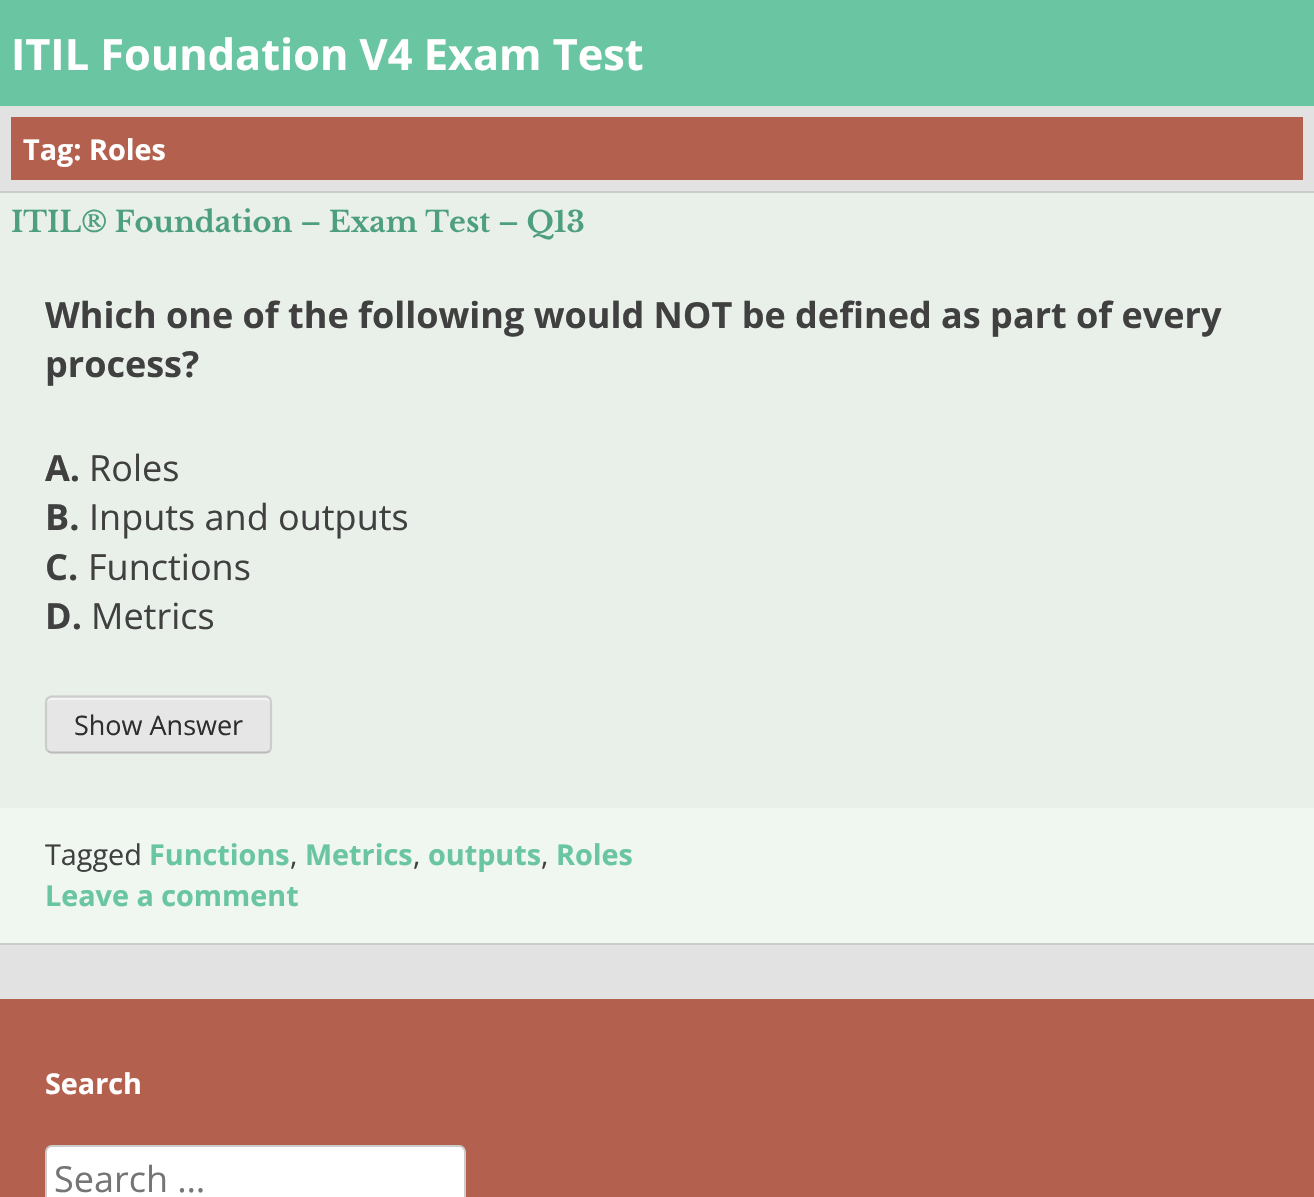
void draw(SkCanvas* c) {
SkPaint p;
p.setAntiAlias(true);
auto F=[&](const char* family, int weight, float size, bool italic = false){SkFontStyle style(weight, SkFontStyle::kNormal_Width,italic ? SkFontStyle::kItalic_Slant : SkFontStyle::kUpright_Slant);SkFont result(fontMgr->matchFamilyStyle(family, style), size);result.setSubpixel(true);return result;};
auto T=[&](const char* s, float x, float y, const SkFont& font){c->drawString(s, x, y, font, p);};
auto R=[&](float x, float y, float w, float h){c->drawRect(SkRect::MakeXYWH(x, y, w, h), p);};
auto Q=[&](float x, float y, float w, float h, float radius){c->drawRoundRect(SkRect::MakeXYWH(x, y, w, h), radius, radius, p);};
auto P=[&](const char* data, bool evenOdd = false){SkPath result = *SkParsePath::FromSVGString(data);if (evenOdd) result.setFillType(SkPathFillType::kEvenOdd);return result;};
c->clear(0xffe2e2e2);
p.setColor(0xff6ac5a2);
R(0,0,1314,106);
auto f1 = F("Open Sans",700,43.25);
p.setColor(0xffffffff);
T("ITIL Foundation V4 Exam Test",11,70,f1);
p.setColor(0xffb4604e);
R(11,117,1292,63);
auto f2 = F("Open Sans",700,28.75);
p.setColor(0xffffffff);
T("Tag: Roles",23,160,f2);
p.setColor(0xffe9f0e9);
R(0,193,1314,615);
p.setColor(0xffc9cdc9);
R(0,191,1314,2);
R(0,943,1314,2);
auto f3 = F("Libre Baskerville",700,28.75);
p.setColor(0xff4e9f80);
T("ITIL® Foundation – Exam Test – Q13",11,232,f3);
auto f4 = F("Open Sans",700,36);
p.setColor(0xff404040);
T("Which one of the following would NOT be defined as part of every",45,328,f4);
T("process?",45,377,f4);
T("A.",45,481,f4);
auto f5 = F("Open Sans",400,36);
T("Roles",89,481,f5);
T("B.",45,530,f4);
T("Inputs and outputs",89,530,f5);
T("C.",45,580,f4);
T("Functions",88,580,f5);
T("D.",45,629,f4);
T("Metrics",91,629,f5);
p.setColor(0xffe6e6e6);
Q(45,695,227,59,7);
p.setColor(0xfff3f3f3);
c->drawPath(P("M52 700h214c2 0 4 2 4 4v-1c0-3-2-5-5-5h-213c-3 0-5 2-5 5v1c0-2 2-4 5-4z"),p);
p.setStroke(true);
p.setStrokeWidth(2.2);
p.setColor(0xffbbbbbb);
c->drawPath(P("M269.5 751c-1 1-2.5 1.5-4 1.5h-213.5c-1.5 0-3-.5-4-1.5"),p);
p.setColor(0xffcccccc);
c->drawPath(P("M48 751c-1.5-1-2-2.5-2-4v-45c0-1.5 .5-3 2-4c1-1 2.5-1.5 4-1.5h213.5c1.5 0 3 .5 4 1.5c1 1 1.5 2.5 1.5 4v45c0 1.5-.5 3-1.5 4"),p);
auto f6 = F("Open Sans",400,27);
p.setStroke(false);
p.setColor(0xff2e2e2e);
T("Show Answer",74,735,f6);
p.setColor(0xfff0f7f0);
R(0,808,1314,135);
auto f7 = F("Open Sans",400,28.75);
p.setColor(0xff404040);
T("Tagged",45,865,f7);
p.setColor(0xff6ac5a2);
T("Functions",149,865,f2);
p.setColor(0xff404040);
T(",",290,865,f7);
p.setColor(0xff6ac5a2);
T("Metrics",305,865,f2);
p.setColor(0xff404040);
T(",",413,865,f7);
p.setColor(0xff6ac5a2);
T("outputs",428,865,f2);
p.setColor(0xff404040);
T(",",541,865,f7);
p.setColor(0xff6ac5a2);
T("Roles",556,865,f2);
T("Leave a comment",45,906,f2);
p.setColor(0xffb4604e);
R(0,999,1314,198);
p.setColor(0xffffffff);
T("Search",45,1094,f2);
c->drawRoundRect(SkRect::MakeXYWH(46,1146,419,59),6,6,p);
p.setStroke(true);
p.setStrokeWidth(2);
p.setColor(0xffcccccc);
c->drawRoundRect(SkRect::MakeXYWH(46,1146,419,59),6,6,p);
p.setStroke(false);
p.setColor(0xff757575);
T("Search …",54,1192,f5);
}
